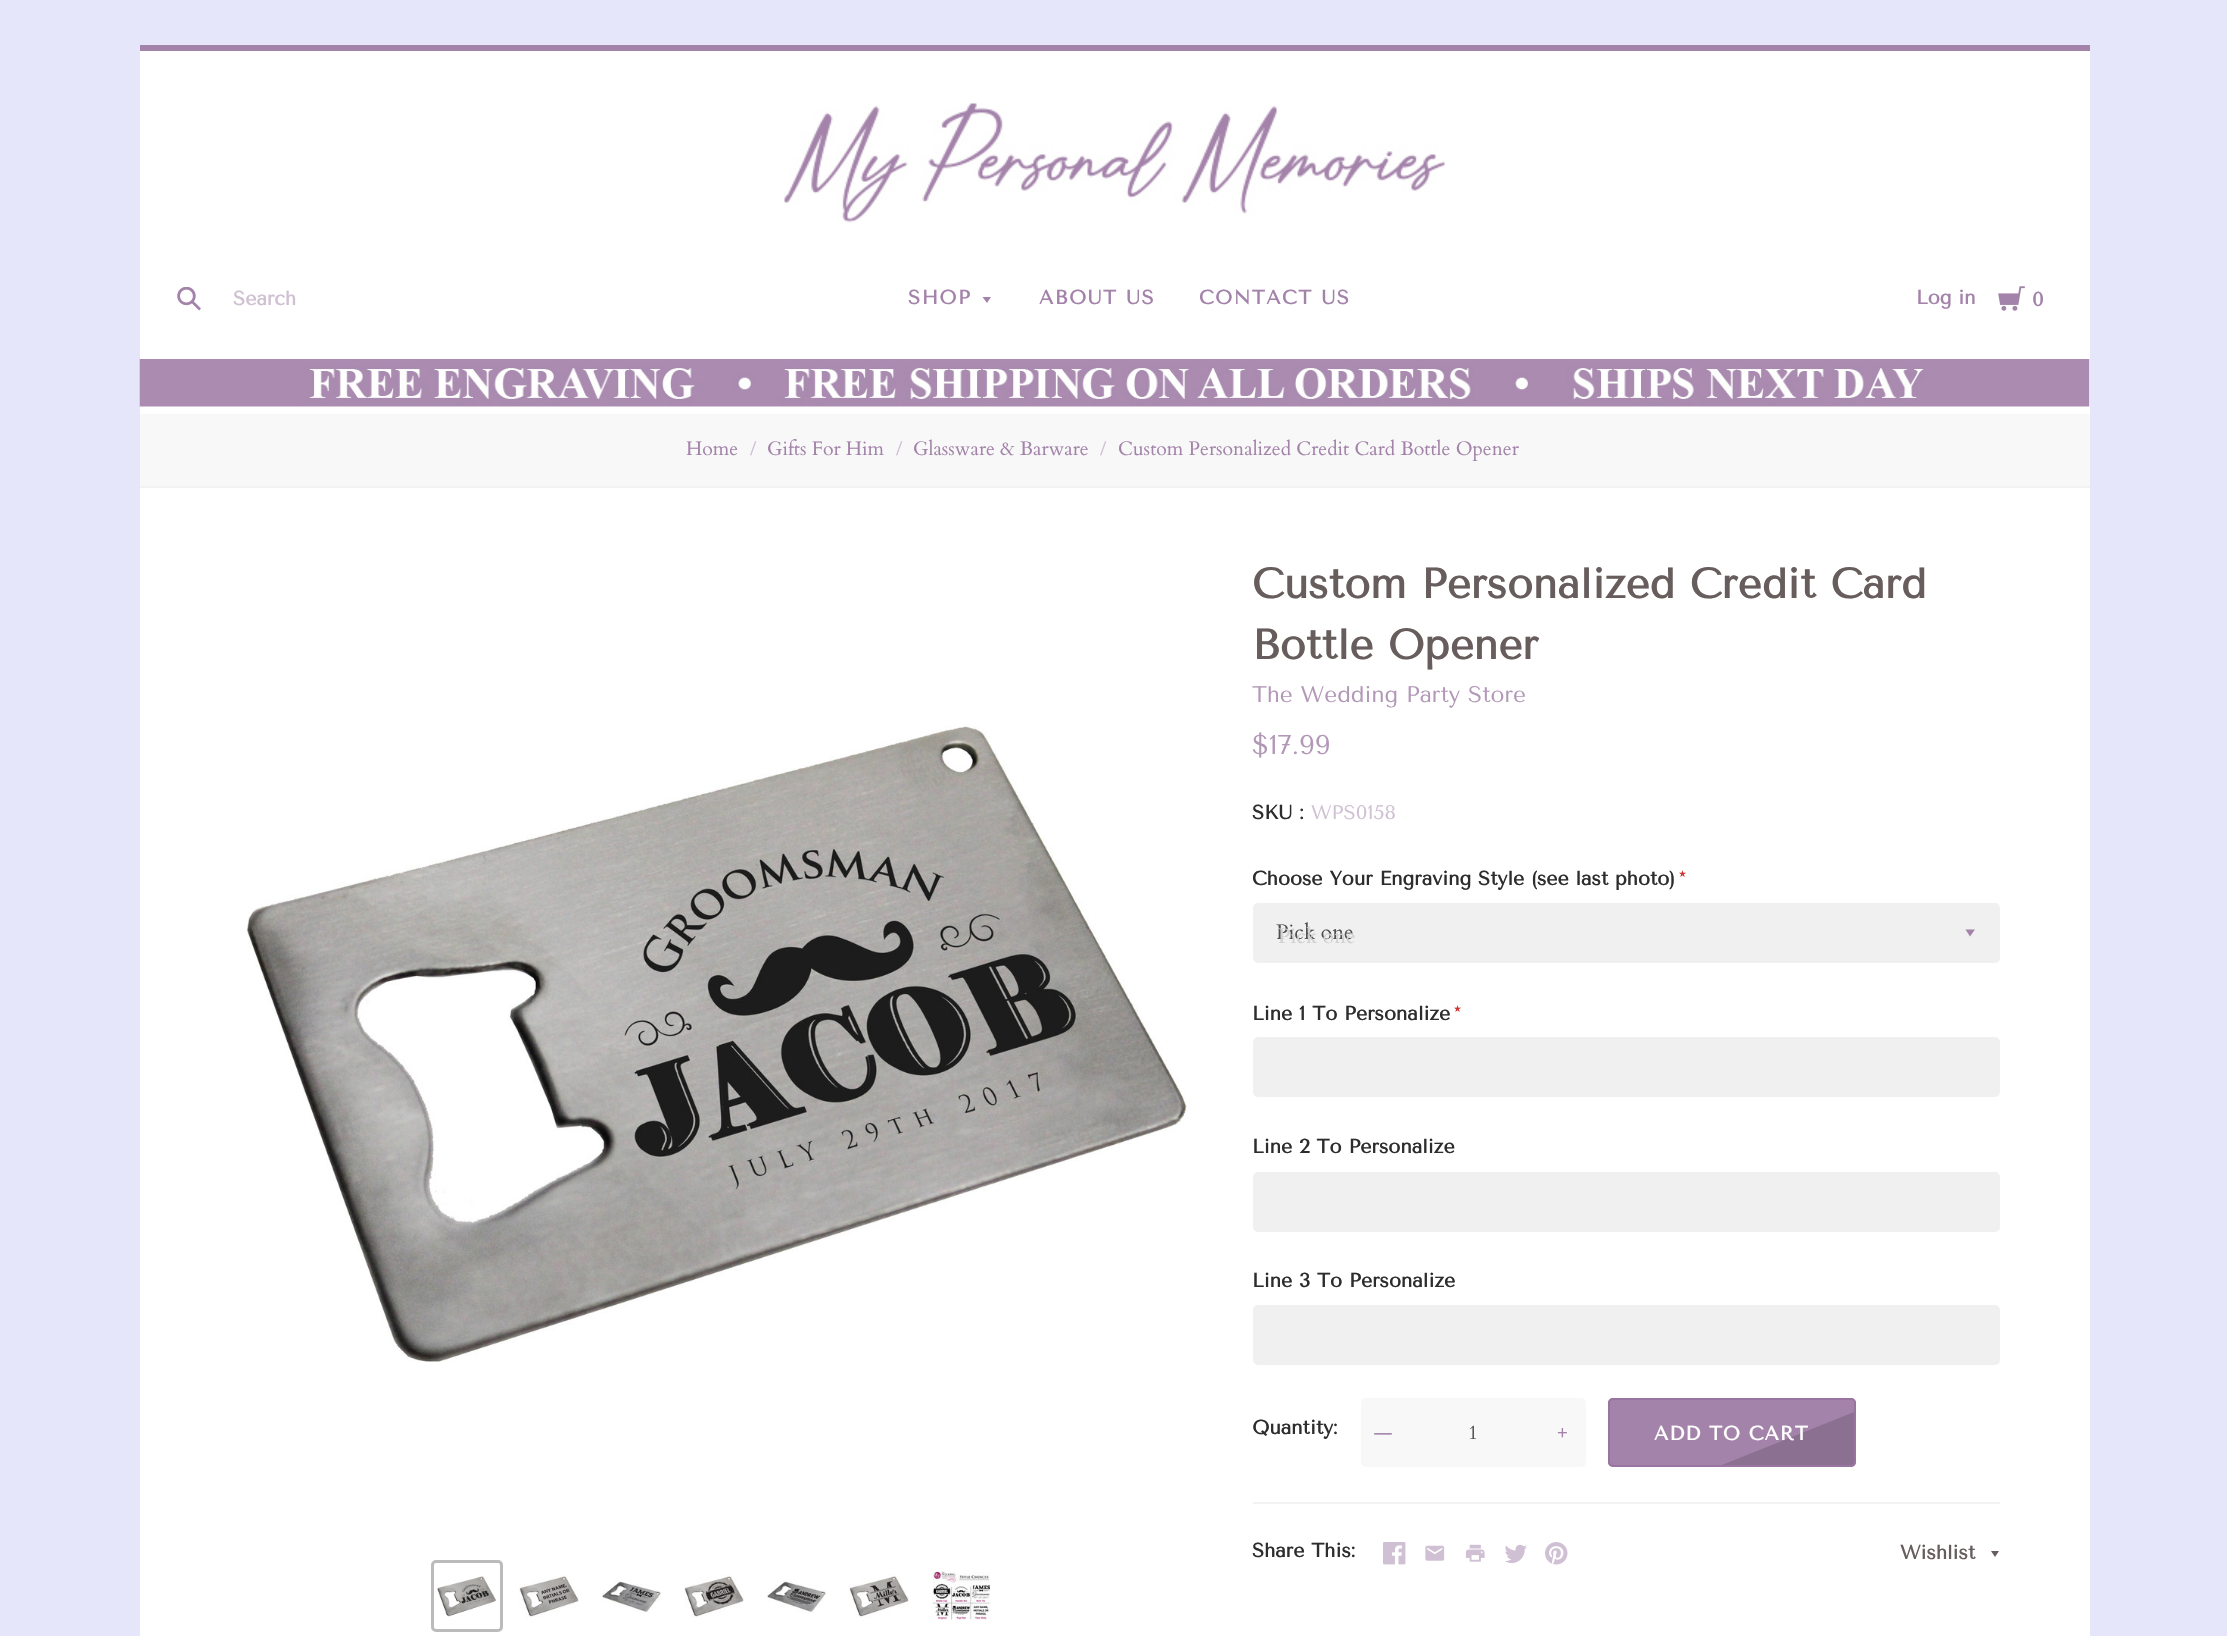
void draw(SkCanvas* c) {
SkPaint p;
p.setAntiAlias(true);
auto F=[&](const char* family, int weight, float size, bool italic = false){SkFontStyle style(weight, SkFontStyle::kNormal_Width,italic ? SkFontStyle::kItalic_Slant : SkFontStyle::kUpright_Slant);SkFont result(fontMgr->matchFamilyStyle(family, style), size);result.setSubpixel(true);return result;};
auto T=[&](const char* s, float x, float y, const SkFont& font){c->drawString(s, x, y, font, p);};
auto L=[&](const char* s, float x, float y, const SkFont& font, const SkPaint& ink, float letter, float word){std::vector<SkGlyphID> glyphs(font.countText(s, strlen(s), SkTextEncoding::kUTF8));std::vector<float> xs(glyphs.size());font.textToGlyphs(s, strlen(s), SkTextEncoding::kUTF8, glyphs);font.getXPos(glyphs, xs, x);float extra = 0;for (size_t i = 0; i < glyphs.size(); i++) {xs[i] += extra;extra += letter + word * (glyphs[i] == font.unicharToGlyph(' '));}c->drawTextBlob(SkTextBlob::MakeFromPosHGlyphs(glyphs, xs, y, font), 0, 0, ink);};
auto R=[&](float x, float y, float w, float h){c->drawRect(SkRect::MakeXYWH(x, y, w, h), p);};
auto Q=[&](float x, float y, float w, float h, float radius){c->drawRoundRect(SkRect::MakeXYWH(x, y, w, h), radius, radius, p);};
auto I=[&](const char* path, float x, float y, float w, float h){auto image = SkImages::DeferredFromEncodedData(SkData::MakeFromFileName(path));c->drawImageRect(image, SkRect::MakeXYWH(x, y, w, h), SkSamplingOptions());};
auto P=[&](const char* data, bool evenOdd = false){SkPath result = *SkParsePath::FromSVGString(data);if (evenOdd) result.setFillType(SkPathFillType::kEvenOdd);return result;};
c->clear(0xffe6e6fa);
p.setColor(0xffffffff);
R(140,359,1950,1277);
I("4.png",139,358,1951,49);
R(140,51,1950,308);
p.setColor(0xffa483aa);
R(140,45,1950,6);
I("1.png",784,103,661,120);
I("2.png",177,287,24,24);
auto f1 = F("Tenor Sans",700,19.5);
p.setColor(0xffd0c0d3);
T("Search",233,305,f1);
p.setColor(0xffa483aa);
L("SHOP",908,304,f1,p,1.5,0);
c->drawPath(P("M982.5 297l4.5 6l4-6z"),p);
L("ABOUT US",1039,304,f1,p,1.5,0);
L("CONTACT US",1199,304,f1,p,1.5,0);
T("Log in",1916,304,f1);
I("3.png",1998,286,27,25);
T("0",2032,306,f1);
p.setColor(0xfff8f8f8);
R(140,414,1950,72);
p.setColor(0xfff2f2f2);
R(140,486,1950,2);
auto f2 = F("Cardo",400,19.5);
p.setColor(0xffa483aa);
T("Home",686,455,f2);
p.setColor(0xffd0c0d3);
T("/",750,455,f2);
p.setColor(0xffa483aa);
T("Gifts For Him",767,455,f2);
p.setColor(0xffd0c0d3);
T("/",896,455,f2);
p.setColor(0xffa483aa);
T("Glassware & Barware",913,455,f2);
p.setColor(0xffd0c0d3);
T("/",1100,455,f2);
p.setColor(0xffa483aa);
T("Custom Personalized Credit Card Bottle Opener",1118,455,f2);
I("5.png",246,726,941,636);
p.setStroke(true);
p.setStrokeWidth(3);
p.setColor(0xffbbbbbb);
c->drawRoundRect(SkRect::MakeXYWH(432.5,1561.5,69,69),3.5,3.5,p);
I("6.png",437,1576,59,41);
I("7.png",519,1574,60,44);
I("8.png",602,1580,60,33);
I("9.png",684,1574,60,44);
I("10.png",767,1580,59,33);
I("11.png",849,1574,60,44);
I("12.png",931,1571,60,49);
p.setStroke(false);
p.setColor(0xfff2f2f2);
R(1253,1502,747,2);
auto f3 = F("Tenor Sans",700,42);
p.setColor(0xff675d5d);
T("Custom Personalized Credit Card",1252,598,f3);
T("Bottle Opener",1252,659,f3);
auto f4 = F("Tenor Sans",400,22.5);
p.setColor(0xffb297b7);
T("The Wedding Party Store",1252,702,f4);
auto f5 = F("Tenor Sans",400,27);
T("$17.99",1252,754,f5);
p.setColor(0xff2d2d2d);
T("SKU :",1252,819,f1);
auto f6 = F("Tenor Sans",400,19.5);
p.setColor(0xffd0c0d3);
T("WPS0158",1311,819,f6);
p.setColor(0xff2d2d2d);
T("Choose Your Engraving Style (see last photo)",1252,885,f1);
p.setColor(0xffce3834);
T("*",1679,885,f1);
p.setColor(0xfff0f0f0);
c->drawRoundRect(SkRect::MakeXYWH(1254,904,745,58),4,4,p);
p.setStroke(true);
p.setStrokeWidth(2);
c->drawRoundRect(SkRect::MakeXYWH(1254,904,745,58),4,4,p);
auto f7 = F("Cardo",400,21);
p.setStroke(false);
p.setColor(0xff4f4f4f);
T("Pick one",1276,939,f7);
p.setColor(0xffd1d1d1);
T("Pick one",1278,943,f7);
p.setColor(0xffa483aa);
c->drawPath(P("M1965.5 929.5l4.5 7l5-7z"),p);
p.setColor(0xff2d2d2d);
T("Line 1 To Personalize",1252,1020,f1);
p.setColor(0xffce3834);
T("*",1454,1020,f1);
p.setColor(0xfff0f0f0);
c->drawRoundRect(SkRect::MakeXYWH(1254,1038,745,58),4,4,p);
p.setStroke(true);
c->drawRoundRect(SkRect::MakeXYWH(1254,1038,745,58),4,4,p);
p.setStroke(false);
p.setColor(0xff2d2d2d);
T("Line 2 To Personalize",1252,1153,f1);
p.setColor(0xfff0f0f0);
c->drawRoundRect(SkRect::MakeXYWH(1254,1173,745,58),4,4,p);
p.setStroke(true);
c->drawRoundRect(SkRect::MakeXYWH(1254,1173,745,58),4,4,p);
p.setStroke(false);
p.setColor(0xff2d2d2d);
T("Line 3 To Personalize",1252,1287,f1);
p.setColor(0xfff0f0f0);
c->drawRoundRect(SkRect::MakeXYWH(1254,1306,745,58),4,4,p);
p.setStroke(true);
c->drawRoundRect(SkRect::MakeXYWH(1254,1306,745,58),4,4,p);
p.setStroke(false);
p.setColor(0xff2d2d2d);
T("Quantity:",1252,1434,f1);
p.setColor(0xfff8f8f8);
Q(1361,1398,225,69,5);
p.setColor(0xffa483aa);
T("—",1374,1439,f7);
p.setColor(0xff4f4f4f);
T("1",1468,1439,f2);
p.setColor(0xffa483aa);
T("+",1557,1439,f7);
Q(1608,1398,248,69,5);
p.setColor(0x26000000);
c->drawPath(P("M1854 1466c-1 1-2 1-3 1h-134l137-55z"),p);
p.setStroke(true);
p.setColor(0xff9974a0);
c->drawRoundRect(SkRect::MakeXYWH(1609,1399,246,67),4,4,p);
p.setStroke(false);
p.setColor(0xffffffff);
L("ADD TO CART",1654,1440,f1,p,1,0);
p.setColor(0xff2d2d2d);
T("Share This:",1252,1557,f1);
I("13.png",1383,1542,23,23);
I("14.png",1425,1545,20,16);
I("15.png",1465,1544,20,18);
I("16.png",1505,1544,22,20);
I("17.png",1545,1542,23,23);
p.setColor(0xff675d5d);
T("Wishlist",1900,1559,f1);
c->drawPath(P("M1991 1551l4 6l4-6z"),p);
}
